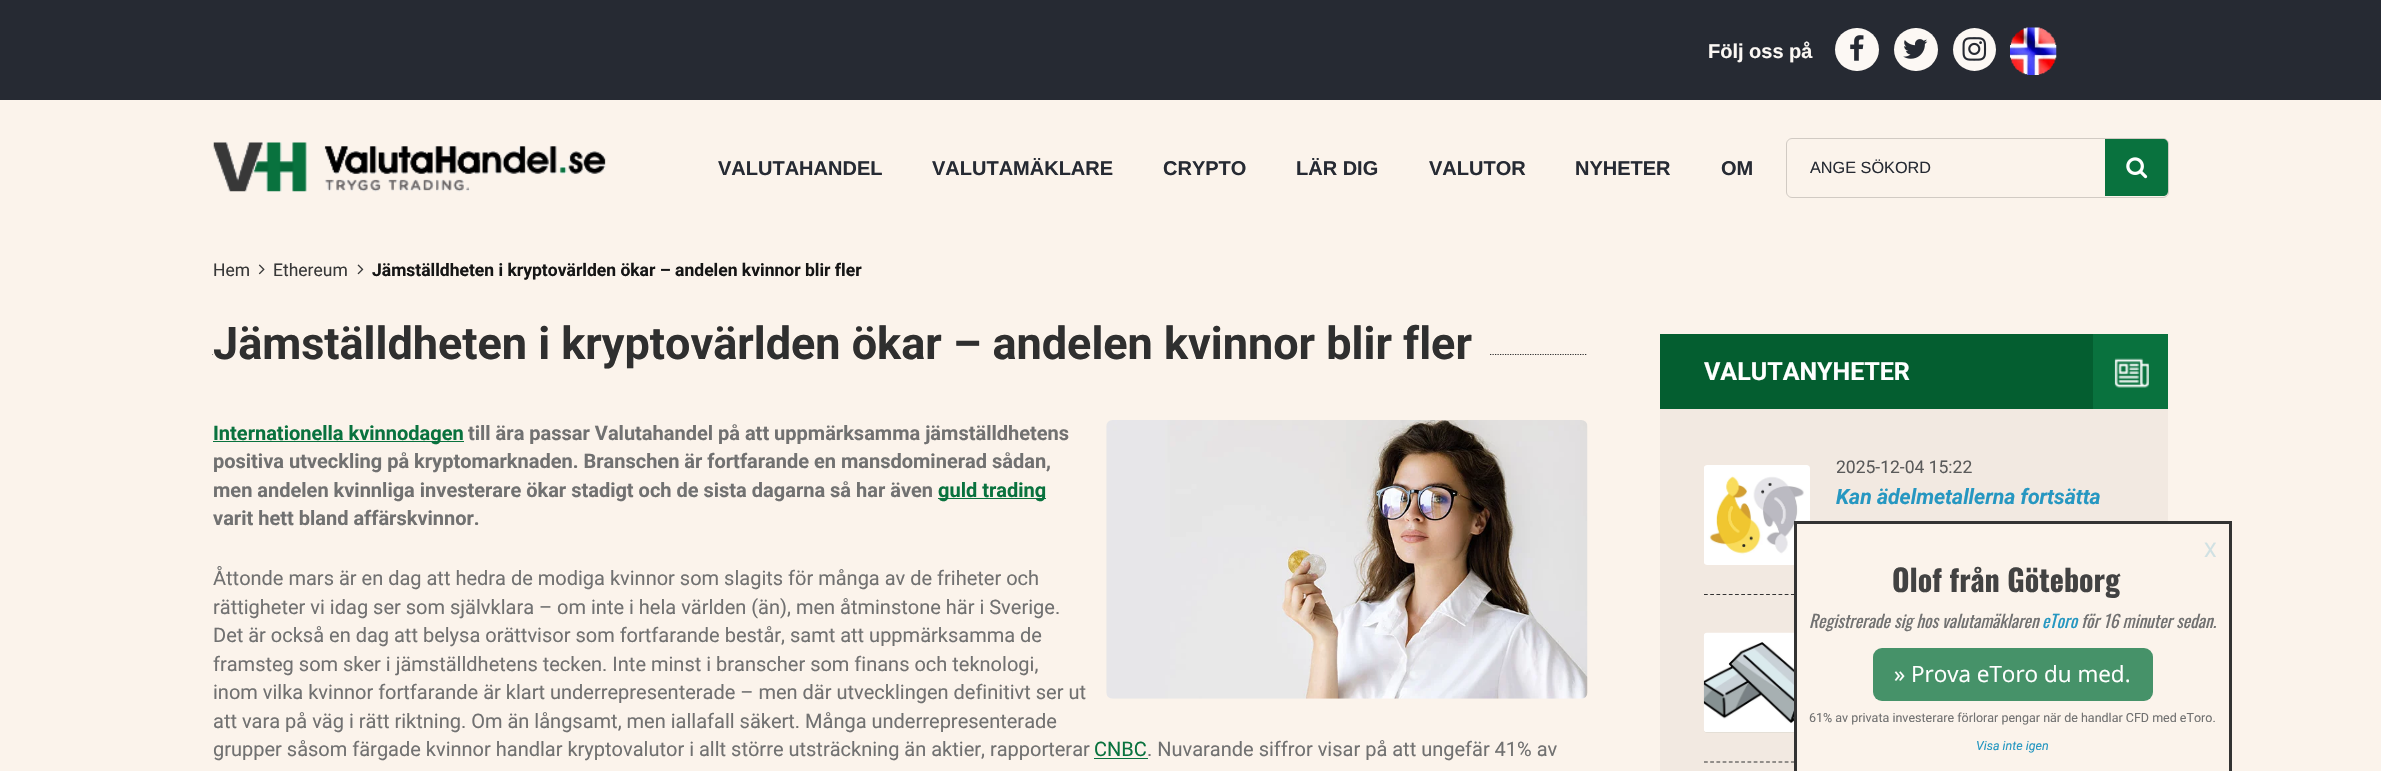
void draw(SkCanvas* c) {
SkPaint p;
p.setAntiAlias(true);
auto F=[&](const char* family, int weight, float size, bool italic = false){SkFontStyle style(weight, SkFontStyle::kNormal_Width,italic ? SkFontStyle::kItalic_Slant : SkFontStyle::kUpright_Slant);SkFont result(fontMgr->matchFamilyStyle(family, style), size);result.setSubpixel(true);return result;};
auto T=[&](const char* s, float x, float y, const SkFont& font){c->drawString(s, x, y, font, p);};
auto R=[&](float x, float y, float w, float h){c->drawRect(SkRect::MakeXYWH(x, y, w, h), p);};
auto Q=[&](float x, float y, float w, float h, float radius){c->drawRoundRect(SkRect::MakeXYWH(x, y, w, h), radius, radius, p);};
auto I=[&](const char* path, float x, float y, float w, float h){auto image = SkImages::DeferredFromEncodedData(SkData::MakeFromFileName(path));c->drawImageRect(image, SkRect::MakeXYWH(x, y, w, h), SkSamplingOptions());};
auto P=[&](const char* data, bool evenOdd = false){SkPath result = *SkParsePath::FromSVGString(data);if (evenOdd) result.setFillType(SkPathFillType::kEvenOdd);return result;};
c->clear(0xfffbf3eb);
I("1.png",213,142,393,50);
auto f1 = F("Arimo",700,20);
p.setColor(0xff262a33);
T("VALUTAHANDEL",718,175,f1);
T("VALUTAMÄKLARE",932,175,f1);
T("CRYPTO",1163,175,f1);
T("LÄR DIG",1296,175,f1);
T("VALUTOR",1429,175,f1);
T("NYHETER",1575,175,f1);
T("OM",1721,175,f1);
p.setStroke(true);
p.setStrokeWidth(1);
p.setColor(0xffd1cac3);
c->drawRoundRect(SkRect::MakeXYWH(1786.5,138.5,382,59),5.5,5.5,p);
auto f2 = F("Arimo",400,16.25);
p.setStroke(false);
p.setColor(0xff262a33);
T("ANGE SÖKORD",1810,173,f2);
p.setColor(0xff09723e);
c->drawPath(P("M2105 139h58c3 0 5 2 5 5v47c0 3-2 5-5 5h-58z"),p);
I("2.png",2126,157,22,22);
p.setColor(0xff262a33);
R(0,0,2381,100);
p.setColor(0xfffcf8f4);
T("Följ oss på",1708,58,f1);
Q(1835,28,44,43,21.5);
I("3.png",1850,35,14,26);
Q(1894,28,44,43,21.5);
I("4.png",1903,39,25,20);
c->drawCircle(1974.5,49.5,21.5,p);
I("5.png",1962,37,25,24);
I("6.png",2010,27,47,48);
p.setColor(0xfff2e9e1);
R(1660,409,508,362);
p.setStroke(true);
p.setStrokeWidth(1.2);
p.setColor(0xff333333);
p.setPathEffect(SkDashPathEffect::Make({{3.75f,2.46f}}, 0));
c->drawPath(P("M1704 594.5h420"),p);
p.setPathEffect(nullptr);
I("11.png",1704,465,106,100);
p.setPathEffect(SkDashPathEffect::Make({{3.75f,2.46f}}, 0));
c->drawPath(P("M1704 762h420"),p);
p.setPathEffect(nullptr);
p.setStroke(false);
p.setColor(0xffdbd4c8);
Q(1704,633,106,100,4);
p.setColor(0xfffbf3eb);
R(1797,524,371,247);
p.setColor(0xff333333);
R(1794,521,437,3);
R(2229,521,3,250);
R(1794,521,3,250);
auto f3 = F("Roboto",400,20);
p.setColor(0xffd0e1e3);
T("X",2204,557,f3);
auto f4 = F("Oswald",700,30);
p.setColor(0xff424242);
T("Olof från Göteborg",1892,592,f4);
auto f5 = F("Oswald",400,17.5,true);
p.setColor(0xff717171);
T("Registrerade sig hos valutamäklaren",1809,628,f5);
p.setColor(0xff2697c1);
T("eToro",2042,628,f5);
p.setColor(0xff717171);
T("för 16 minuter sedan.",2081,628,f5);
p.setColor(0xff469269);
Q(1873,648,280,53,9);
auto f6 = F("Open Sans",400,22.5);
p.setColor(0xffffffff);
T("» Prova eToro du med.",1894,682,f6);
auto f7 = F("Roboto",400,12.5);
p.setColor(0xff717171);
T("61% av privata investerare förlorar pengar när de handlar CFD med eToro.",1809,722,f7);
auto f8 = F("Roboto",400,12.5,true);
p.setColor(0xff2697c1);
T("Visa inte igen",1976,750,f8);
auto f9 = F("Roboto",400,17.5);
p.setColor(0xff383838);
T("Hem",213,276,f9);
I("7.png",258,264,7,11);
T("Ethereum",273,276,f9);
I("8.png",357,264,7,11);
auto f10 = F("Roboto",700,17.5);
p.setColor(0xff151515);
T("Jämställdheten i kryptovärlden ökar – andelen kvinnor blir fler",372,276,f10);
p.setStroke(true);
p.setColor(0xff2f2f2f);
p.setPathEffect(SkDashPathEffect::Make({{1.25f,1.25f}}, 0));
c->drawPath(P("M212.5 354.5h1375"),p);
p.setPathEffect(nullptr);
p.setStroke(false);
p.setColor(0xfffbf3eb);
R(213,353,1276,3);
auto f11 = F("Roboto",700,45);
p.setColor(0xff2f2f2f);
T("Jämställdheten i kryptovärlden ökar – andelen kvinnor blir fler",213,359,f11);
p.setColor(0xff09723e);
R(213,441,251,1);
auto f12 = F("Roboto",700,20);
T("Internationella kvinnodagen",213,440,f12);
p.setColor(0xff717171);
T("till ära passar Valutahandel på att uppmärksamma jämställdhetens",468,440,f12);
T("positiva utveckling på kryptomarknaden. Branschen är fortfarande en mansdominerad sådan,",213,468,f12);
T("men andelen kvinnliga investerare ökar stadigt och de sista dagarna så har även",213,497,f12);
p.setColor(0xff09723e);
R(938,498,108,1);
T("guld trading",938,497,f12);
p.setColor(0xff717171);
T("varit hett bland affärskvinnor.",213,525,f12);
I("9.png",1106,420,482,279);
T("Åttonde mars är en dag att hedra de modiga kvinnor som slagits för många av de friheter och",213,585,f3);
T("rättigheter vi idag ser som självklara – om inte i hela världen (än), men åtminstone här i Sverige.",213,614,f3);
T("Det är också en dag att belysa orättvisor som fortfarande består, samt att uppmärksamma de",213,642,f3);
T("framsteg som sker i jämställdhetens tecken. Inte minst i branscher som finans och teknologi,",213,671,f3);
T("inom vilka kvinnor fortfarande är klart underrepresenterade – men där utvecklingen definitivt ser ut",213,699,f3);
T("att vara på väg i rätt riktning. Om än långsamt, men iallafall säkert. Många underrepresenterade",213,728,f3);
T("grupper såsom färgade kvinnor handlar kryptovalutor i allt större utsträckning än aktier, rapporterar",213,756,f3);
p.setColor(0xff09723e);
T("CNBC",1094,756,f3);
R(1094,758,54,1);
p.setColor(0xff717171);
T(". Nuvarande siffror visar på att ungefär 41% av",1147,756,f3);
p.setColor(0xff045e30);
R(1660,334,433,75);
auto f13 = F("Roboto",700,25);
p.setColor(0xffffffff);
T("VALUTANYHETER",1704,380,f13);
p.setColor(0xff09723e);
R(2093,334,75,75);
I("10.png",2114,358,35,30);
p.setColor(0xff5a5a5a);
T("2025-12-04 15:22",1836,473,f9);
auto f14 = F("Roboto",700,21.25,true);
p.setColor(0xff2697c1);
T("Kan ädelmetallerna fortsätta",1836,504,f14);
I("12.png",1703,632,91,101);
}
